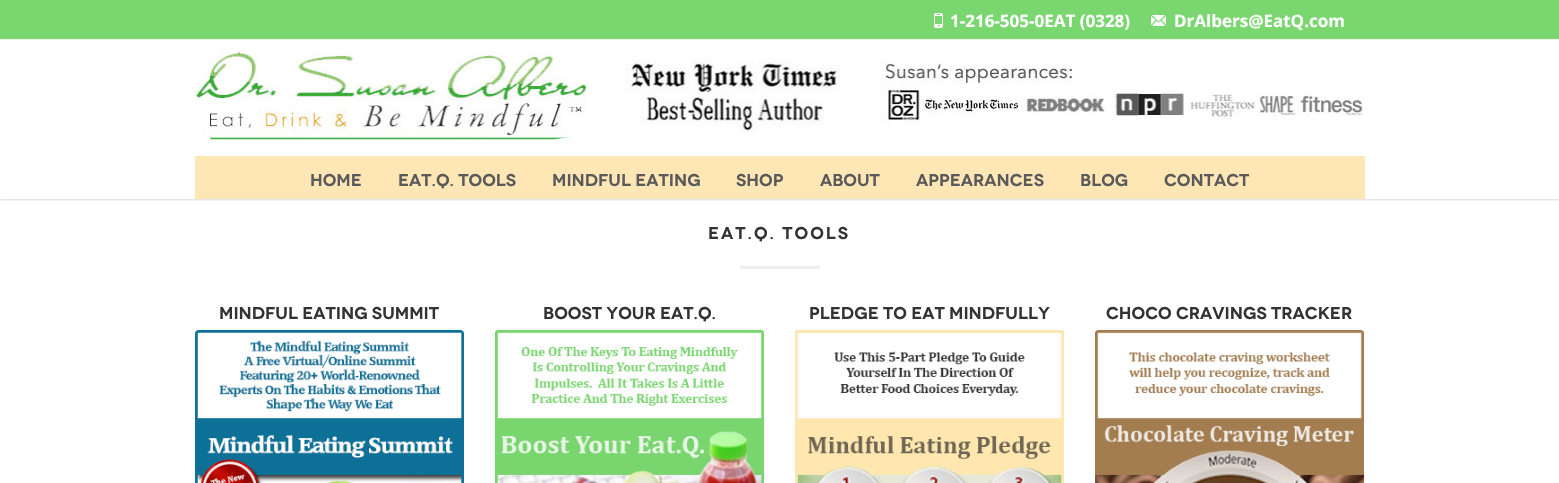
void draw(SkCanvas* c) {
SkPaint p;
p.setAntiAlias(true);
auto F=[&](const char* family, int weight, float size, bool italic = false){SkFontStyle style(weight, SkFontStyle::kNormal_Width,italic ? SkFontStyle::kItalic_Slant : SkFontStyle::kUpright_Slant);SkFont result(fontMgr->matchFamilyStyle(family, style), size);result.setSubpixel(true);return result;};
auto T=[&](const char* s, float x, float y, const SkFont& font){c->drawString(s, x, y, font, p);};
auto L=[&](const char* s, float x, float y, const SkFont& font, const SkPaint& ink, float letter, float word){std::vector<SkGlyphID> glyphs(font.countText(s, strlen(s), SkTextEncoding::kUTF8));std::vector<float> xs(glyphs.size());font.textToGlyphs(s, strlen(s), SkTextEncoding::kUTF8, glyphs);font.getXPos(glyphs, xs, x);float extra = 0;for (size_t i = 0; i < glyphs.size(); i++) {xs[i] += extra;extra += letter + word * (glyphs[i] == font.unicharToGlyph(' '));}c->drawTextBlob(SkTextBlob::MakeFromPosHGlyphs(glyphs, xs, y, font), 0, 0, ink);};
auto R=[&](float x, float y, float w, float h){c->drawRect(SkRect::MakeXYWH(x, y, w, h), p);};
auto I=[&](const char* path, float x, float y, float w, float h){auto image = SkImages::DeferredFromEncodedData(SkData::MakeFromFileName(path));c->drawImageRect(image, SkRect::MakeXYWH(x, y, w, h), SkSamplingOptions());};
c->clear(0xffffffff);
c->save();
c->clipRect(SkRect::MakeXYWH(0,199,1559,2));
p.setColor(0x26000000);
p.setMaskFilter(SkMaskFilter::MakeBlur(kNormal_SkBlurStyle, 1));
c->drawRect(SkRect::MakeXYWH(0,1,1559,199),p);
p.setMaskFilter(nullptr);
c->restore();
p.setColor(0xff7ad76f);
R(0,0,1559,39);
p.setColor(0xffeeeeee);
R(0,39,1559,1);
I("1.png",934,13,9,15);
auto f1 = F("Open Sans",700,17);
p.setColor(0xffffffff);
T("1-216-505-0EAT (0328)",950,27,f1);
I("2.png",1151,15,15,11);
T("DrAlbers@EatQ.com",1174,27,f1);
I("3.png",195,52,1168,88);
p.setColor(0xffffe6b5);
R(195,156,1170,43);
auto f2 = F("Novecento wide",600,17);
p.setColor(0xff5a5a5a);
T("HOME",310,186,f2);
T("EAT.Q. TOOLS",398,186,f2);
T("MINDFUL EATING",552,186,f2);
T("SHOP",736,186,f2);
T("ABOUT",820,186,f2);
T("APPEARANCES",916,186,f2);
T("BLOG",1080,186,f2);
T("CONTACT",1164,186,f2);
p.setColor(0xff333333);
L("EAT.Q. TOOLS",708,239,f2,p,2,0);
p.setColor(0xffeeeeee);
R(740,266,80,3);
p.setColor(0xff333333);
T("Mindful Eating Summit",219,319,f2);
I("4.png",195,330,269,153);
T("Boost Your Eat.Q.",543,319,f2);
I("5.png",495,330,269,153);
T("Pledge To Eat Mindfully",809,319,f2);
I("6.png",795,330,269,153);
T("Choco Cravings Tracker",1106,319,f2);
I("7.png",1095,330,269,153);
}
